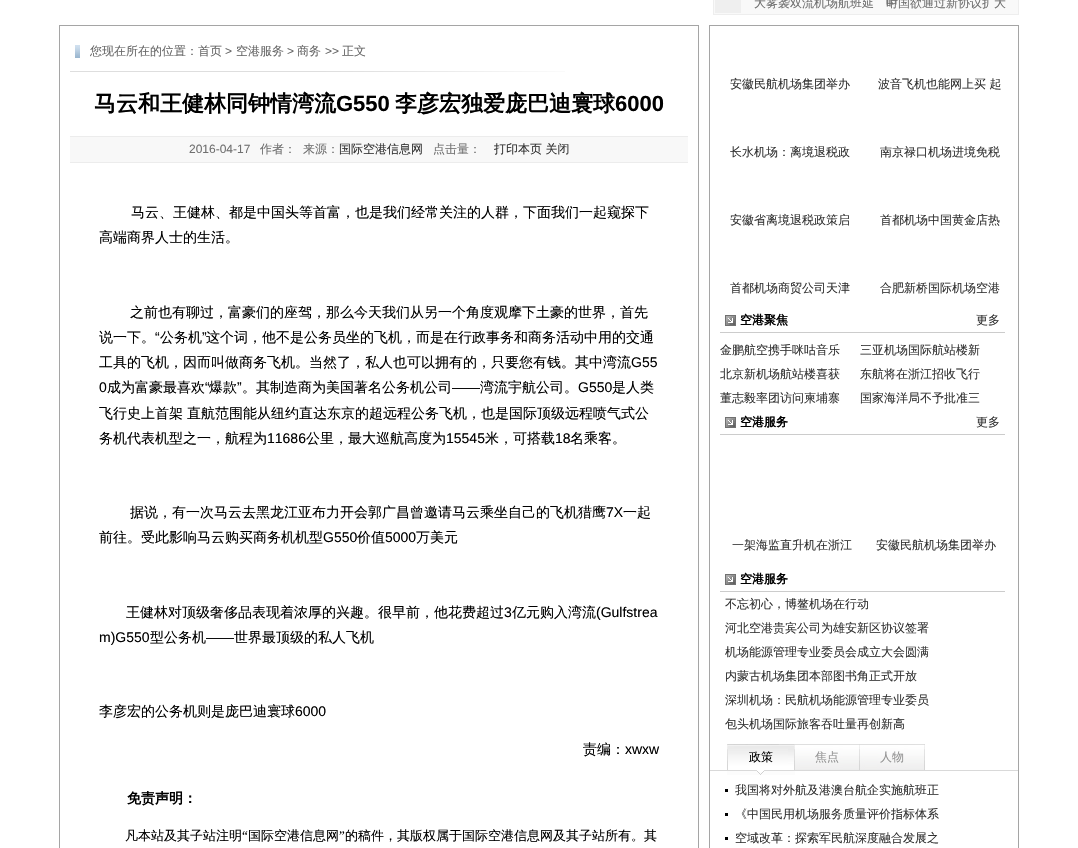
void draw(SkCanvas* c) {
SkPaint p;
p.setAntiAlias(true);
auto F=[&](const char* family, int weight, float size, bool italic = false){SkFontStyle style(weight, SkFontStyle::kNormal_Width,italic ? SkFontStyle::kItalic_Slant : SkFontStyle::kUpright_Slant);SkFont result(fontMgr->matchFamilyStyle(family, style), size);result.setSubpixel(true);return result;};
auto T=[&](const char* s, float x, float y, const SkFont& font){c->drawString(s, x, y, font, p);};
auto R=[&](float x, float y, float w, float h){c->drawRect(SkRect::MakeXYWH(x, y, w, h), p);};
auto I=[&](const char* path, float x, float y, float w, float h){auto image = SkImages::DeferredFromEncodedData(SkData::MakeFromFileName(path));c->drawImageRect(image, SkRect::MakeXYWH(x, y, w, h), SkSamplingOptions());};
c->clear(0xffffffff);
p.setColor(0xfff9f9f9);
R(742,0,276,14);
p.setStroke(true);
p.setStrokeWidth(1);
p.setColor(0xffeeeeee);
c->drawRect(SkRect::MakeXYWH(713.5,-.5,305,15),p);
p.setStroke(false);
p.setColor(0xffefefef);
c->drawRect(SkRect::MakeXYWH(714.5,-.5,27,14),p);
p.setStroke(true);
p.setColor(0xfff9f9f9);
c->drawRect(SkRect::MakeXYWH(714.5,-.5,27,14),p);
auto f1 = F("WenQuanYi Zen Hei",500,12);
p.setStroke(false);
p.setColor(0xff707070);
T("大雾袭双流机场航班延",754,7,f1);
T("时",886,7,f1);
T("中国欲通过新协议扩大",886,7,f1);
p.setStroke(true);
p.setColor(0xffa5a5a5);
c->drawRect(SkRect::MakeXYWH(59.5,25.5,639,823),p);
I("1.png",70,71,495,1);
I("2.png",75,45,5,13);
p.setStroke(false);
p.setColor(0xff666666);
T("您现在所在的位置：首页",90,55,f1);
auto f2 = F("Liberation Sans",400,12);
T(">",225,55,f2);
T("空港服务",236,55,f1);
T(">",287,55,f2);
T("商务",297,55,f1);
T(">>",325,55,f2);
T("正文",342,55,f1);
auto f3 = F("WenQuanYi Zen Hei",700,22);
p.setColor(0xff000000);
T("马云和王健林同钟情湾流",94,111,f3);
auto f4 = F("Liberation Sans",700,22);
T("G550",336,111,f4);
T("李彦宏独爱庞巴迪寰球",395,111,f3);
T("6000",615,111,f4);
p.setColor(0xfff8f8f8);
R(70,137,618,25);
p.setColor(0xffececec);
R(70,136,618,1);
R(70,162,618,1);
p.setColor(0xff707070);
T("2016-04-17",189,153,f2);
T("作者：",260,153,f1);
T("来源：",303,153,f1);
p.setColor(0xff333333);
T("国际空港信息网",339,153,f1);
p.setColor(0xff707070);
T("点击量：",433,153,f1);
p.setColor(0xff333333);
T("打印本页 关闭",494,153,f1);
auto f5 = F("WenQuanYi Zen Hei",500,14);
p.setColor(0xff000000);
T("马云、王健林、都是中国头等首富，也是我们经常关注的人群，下面我们一起窥探下",131,217,f5);
T("高端商界人士的生活。",99,242,f5);
T("之前也有聊过，富豪们的座驾，那么今天我们从另一个角度观摩下土豪的世界，首先",130,317,f5);
T("说一下。",99,342,f5);
auto f6 = F("Liberation Sans",400,14);
T("“",155,342,f6);
T("公务机",160,342,f5);
T("”",202,342,f6);
T("这个词，他不是公务员坐的飞机，而是在行政事务和商务活动中用的交通",206,342,f5);
T("工具的飞机，因而叫做商务飞机。当然了，私人也可以拥有的，只要您有钱。其中湾流",99,367,f5);
T("G55",631,367,f6);
T("0",99,392,f6);
T("成为富豪最喜欢",107,392,f5);
T("“",205,392,f6);
T("爆款",209,392,f5);
T("”",237,392,f6);
T("。其制造商为美国著名公务机公司",242,392,f5);
T("——",452,392,f6);
T("湾流宇航公司。",480,392,f5);
T("G550",578,392,f6);
T("是人类",612,392,f5);
T("飞行史上首架",99,418,f5);
T("直航范围能从纽约直达东京的超远程公务飞机，也是国际顶级远程喷气式公",187,418,f5);
T("务机代表机型之一，航程为",99,443,f5);
T("11686",267,443,f6);
T("公里，最大巡航高度为",306,443,f5);
T("15545",446,443,f6);
T("米，可搭载",485,443,f5);
T("18",555,443,f6);
T("名乘客。",570,443,f5);
T("据说，有一次马云去黑龙江亚布力开会郭广昌曾邀请马云乘坐自己的飞机猎鹰",130,517,f5);
T("7X",606,517,f6);
T("一起",623,517,f5);
T("前往。受此影响马云购买商务机机型",99,542,f5);
T("G550",323,542,f6);
T("价值",357,542,f5);
T("5000",385,542,f6);
T("万美元",416,542,f5);
T("王健林对顶级奢侈品表现着浓厚的兴趣。很早前，他花费超过",126,617,f5);
T("3",504,617,f6);
T("亿元购入湾流",512,617,f5);
T("(Gulfstrea",596,617,f6);
T("m)G550",99,642,f6);
T("型公务机",150,642,f5);
T("——",206,642,f6);
T("世界最顶级的私人飞机",234,642,f5);
T("李彦宏的公务机则是庞巴迪寰球",99,716,f5);
T("6000",295,716,f6);
T("责编：",583,754,f5);
T("xwxw",625,754,f6);
auto f7 = F("WenQuanYi Zen Hei",700,14);
T("免责声明：",127,803,f7);
auto f8 = F("WenQuanYi Zen Hei",500,13);
T("凡本站及其子站注明",125,840,f8);
auto f9 = F("Liberation Serif",400,13);
T("“",242,840,f9);
T("国际空港信息网",248,840,f8);
T("”",339,840,f9);
T("的稿件，其版权属于国际空港信息网及其子站所有。其",345,840,f8);
p.setStroke(true);
p.setColor(0xffa5a5a5);
c->drawRect(SkRect::MakeXYWH(709.5,25.5,309,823),p);
p.setStroke(false);
p.setColor(0xff333333);
T("安徽民航机场集团举办",730,88,f1);
T("波音飞机也能网上买 起",878,88,f1);
T("长水机场：离境退税政",730,156,f1);
T("南京禄口机场进境免税",880,156,f1);
T("安徽省离境退税政策启",730,224,f1);
T("首都机场中国黄金店热",880,224,f1);
T("首都机场商贸公司天津",730,292,f1);
T("合肥新桥国际机场空港",880,292,f1);
I("3.png",725,315,11,11);
p.setColor(0xffcccccc);
R(720,332,285,1);
auto f10 = F("WenQuanYi Zen Hei",700,12);
p.setColor(0xff000000);
T("空港聚焦",740,324,f10);
p.setColor(0xff333333);
T("更多",976,324,f1);
T("金鹏航空携手咪咕音乐",720,354,f1);
T("三亚机场国际航站楼新",860,354,f1);
T("北京新机场航站楼喜获",720,378,f1);
T("东航将在浙江招收飞行",860,378,f1);
T("董志毅率团访问柬埔寨",720,402,f1);
T("国家海洋局不予批准三",860,402,f1);
I("3.png",725,417,11,11);
p.setColor(0xffcccccc);
R(720,434,285,1);
p.setColor(0xff000000);
T("空港服务",740,426,f10);
p.setColor(0xff333333);
T("更多",976,426,f1);
T("一架海监直升机在浙江",732,549,f1);
T("安徽民航机场集团举办",876,549,f1);
I("3.png",725,574,11,11);
p.setColor(0xffcccccc);
R(720,591,285,1);
p.setColor(0xff000000);
T("空港服务",740,583,f10);
p.setColor(0xff333333);
T("不忘初心，博鳌机场在行动",725,608,f1);
T("河北空港贵宾公司为雄安新区协议签署",725,632,f1);
T("机场能源管理专业委员会成立大会圆满",725,656,f1);
T("内蒙古机场集团本部图书角正式开放",725,680,f1);
T("深圳机场：民航机场能源管理专业委员",725,704,f1);
T("包头机场国际旅客吞吐量再创新高",725,728,f1);
p.setColor(0xffd9d9d9);
R(710,770,308,1);
I("4.png",727,744,68,31);
p.setColor(0xff000000);
T("政策",749,761,f1);
I("5.png",795,744,65,26);
p.setColor(0xff939393);
T("焦点",815,761,f1);
I("5.png",860,744,65,26);
T("人物",880,761,f1);
p.setColor(0xff000000);
R(725,789,3,3);
p.setColor(0xff333333);
T("我国将对外航及港澳台航企实施航班正",735,794,f1);
p.setColor(0xff000000);
R(725,813,3,3);
p.setColor(0xff333333);
T("《中国民用机场服务质量评价指标体系",735,818,f1);
p.setColor(0xff000000);
R(725,837,3,3);
p.setColor(0xff333333);
T("空域改革：探索军民航深度融合发展之",735,842,f1);
}
